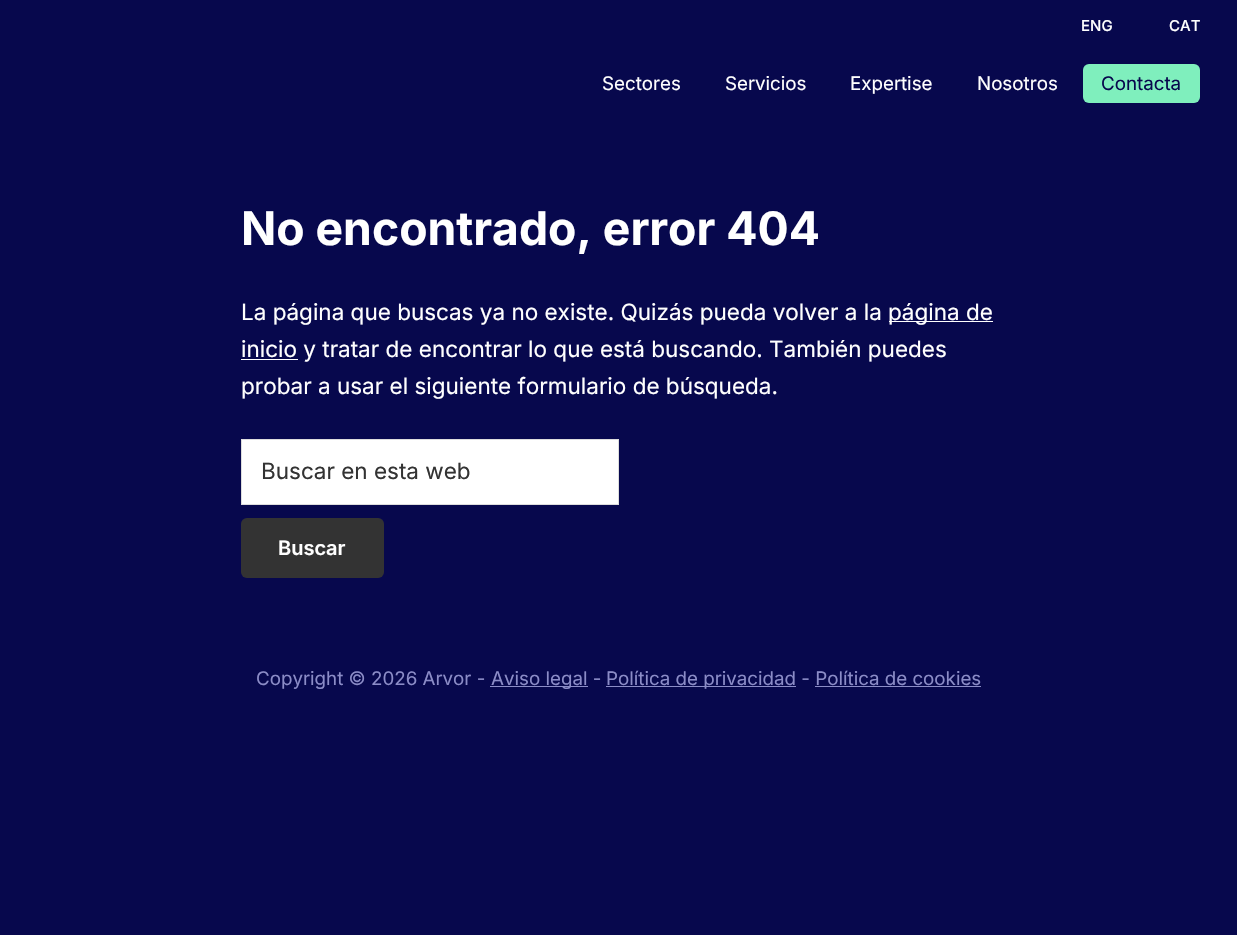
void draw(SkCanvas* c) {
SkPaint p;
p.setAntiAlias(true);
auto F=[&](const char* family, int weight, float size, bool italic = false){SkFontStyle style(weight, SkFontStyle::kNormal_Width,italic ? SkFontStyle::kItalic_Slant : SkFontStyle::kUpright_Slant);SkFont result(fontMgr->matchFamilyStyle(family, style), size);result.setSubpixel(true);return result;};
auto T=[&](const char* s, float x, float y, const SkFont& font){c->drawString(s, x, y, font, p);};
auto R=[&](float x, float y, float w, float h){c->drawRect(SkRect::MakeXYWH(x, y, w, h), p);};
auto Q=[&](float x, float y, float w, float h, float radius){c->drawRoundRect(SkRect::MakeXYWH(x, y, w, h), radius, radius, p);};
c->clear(0xff07084d);
auto f1 = F("Inter",500,15);
p.setColor(0xffffffff);
T("ENG",1081,31,f1);
T("CAT",1169,31,f1);
auto f2 = F("Inter",400,18.75);
T("Sectores",602,90,f2);
T("Servicios",725,90,f2);
T("Expertise",850,90,f2);
T("Nosotros",977,90,f2);
p.setColor(0xff7fefbd);
Q(1083,64,117,39,6);
p.setColor(0xff07084d);
T("Contacta",1101,90,f2);
auto f3 = F("Inter",700,46.25);
p.setColor(0xffffffff);
T("No encontrado, error 404",241,245,f3);
auto f4 = F("Inter",400,22.5);
T("La página que buscas ya no existe. Quizás pueda volver a la",241,320,f4);
R(889,321,104,1);
T("página de",888,320,f4);
R(241,359,57,1);
T("inicio y tratar de encontrar lo que está buscando. También puedes",241,357,f4);
T("probar a usar el siguiente formulario de búsqueda.",241,394,f4);
c->drawRect(SkRect::MakeXYWH(241.5,439.5,377,65),p);
p.setStroke(true);
p.setStrokeWidth(1);
p.setColor(0xffdddddd);
c->drawRect(SkRect::MakeXYWH(241.5,439.5,377,65),p);
p.setStroke(false);
p.setColor(0xff333333);
T("Buscar en esta web",261,479,f4);
Q(241,518,143,60,6);
auto f5 = F("Inter",600,20);
p.setColor(0xffffffff);
T("Buscar",278,555,f5);
p.setColor(0xff8b8cc7);
T("Copyright © 2026 Arvor -",256,685,f2);
R(490,686,98,1);
T("Aviso legal -",491,685,f2);
R(606,686,190,1);
T("Política de privacidad - Política de cookies",606,685,f2);
R(815,686,166,1);
}
